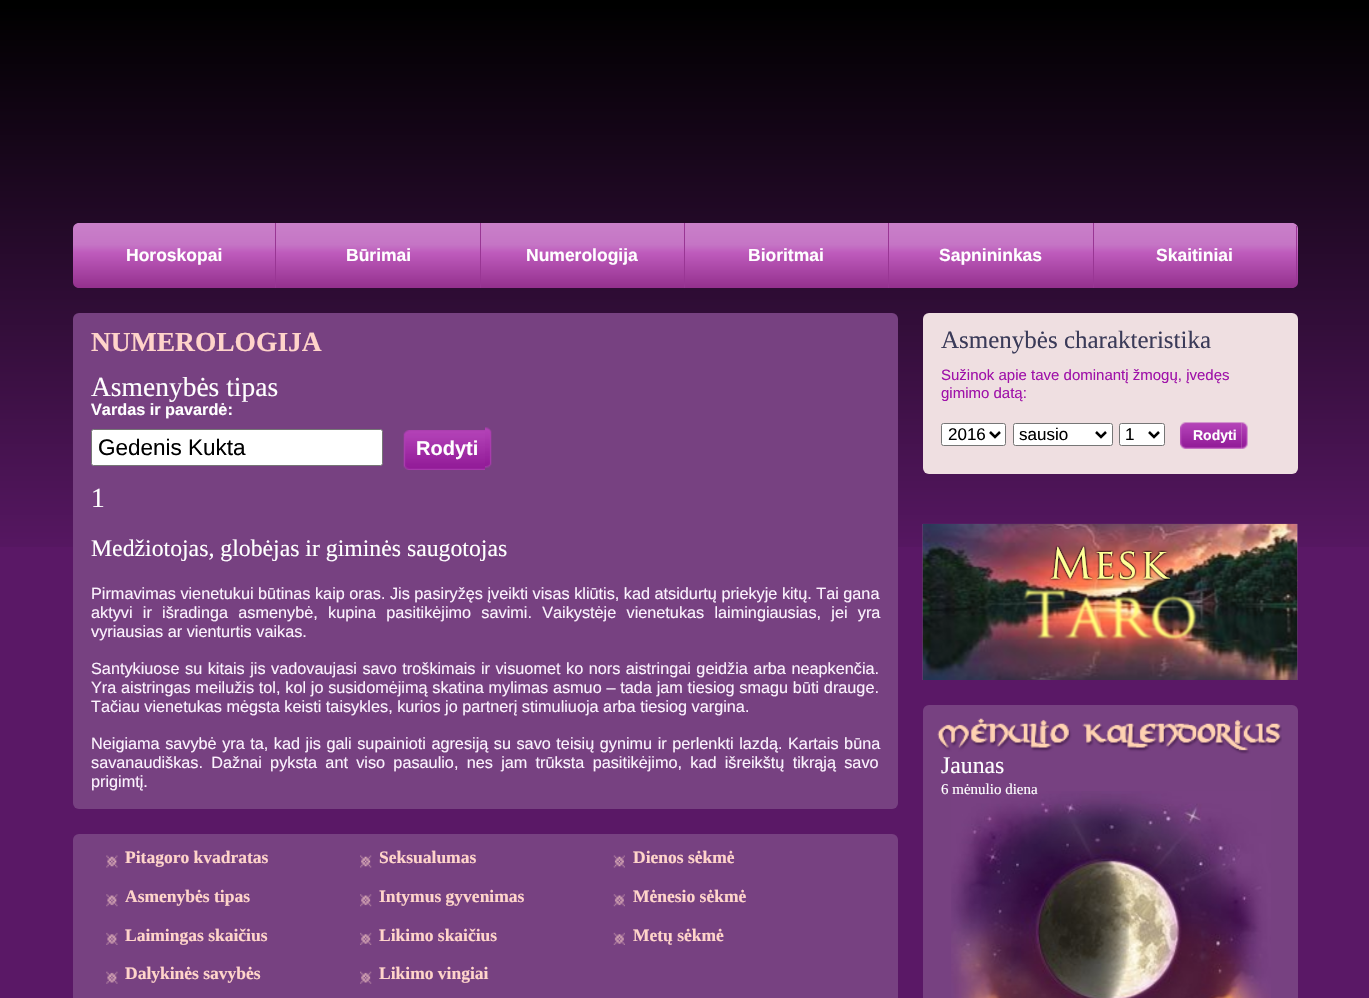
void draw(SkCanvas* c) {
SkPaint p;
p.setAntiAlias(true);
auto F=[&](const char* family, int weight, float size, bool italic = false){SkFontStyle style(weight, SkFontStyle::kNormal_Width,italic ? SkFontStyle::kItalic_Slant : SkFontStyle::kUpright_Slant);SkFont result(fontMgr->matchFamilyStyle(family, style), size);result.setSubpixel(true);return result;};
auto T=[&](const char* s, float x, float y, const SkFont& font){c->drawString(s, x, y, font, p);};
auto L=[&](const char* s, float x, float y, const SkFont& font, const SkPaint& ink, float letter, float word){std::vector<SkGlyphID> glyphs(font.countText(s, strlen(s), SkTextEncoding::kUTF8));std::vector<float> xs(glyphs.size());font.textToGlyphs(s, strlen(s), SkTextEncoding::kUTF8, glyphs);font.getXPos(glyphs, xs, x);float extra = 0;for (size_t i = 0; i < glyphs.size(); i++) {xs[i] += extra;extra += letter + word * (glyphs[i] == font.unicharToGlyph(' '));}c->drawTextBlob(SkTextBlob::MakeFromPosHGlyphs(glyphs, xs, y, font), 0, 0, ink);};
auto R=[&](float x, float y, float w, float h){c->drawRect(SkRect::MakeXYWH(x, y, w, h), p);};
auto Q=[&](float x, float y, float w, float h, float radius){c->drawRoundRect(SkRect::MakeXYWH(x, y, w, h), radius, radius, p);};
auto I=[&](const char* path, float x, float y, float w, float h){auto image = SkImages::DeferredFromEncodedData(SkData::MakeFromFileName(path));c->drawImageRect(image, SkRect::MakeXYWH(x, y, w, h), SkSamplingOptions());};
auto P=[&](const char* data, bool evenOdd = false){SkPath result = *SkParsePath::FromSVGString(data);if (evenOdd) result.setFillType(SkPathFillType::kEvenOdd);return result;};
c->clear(0xff5a1866);
I("1.png",0,0,1369,547);
{
const SkColor colors[] = {0xffc980c9,0xffc575c5,0xffbe5bbc,0xff93308d};
const float stops[] = {0,.33,.46,1};
const SkPoint ends[] = {{174,223}, {174,288}};
p.setShader(SkGradientShader::MakeLinear(ends, colors, stops, 4, SkTileMode::kClamp));
p.setAlpha(255);
}
c->drawPath(P("M79 223h197v65h-197c-3.5 0-6-2.5-6-6v-53c0-3.5 2.5-6 6-6z"),p);
p.setShader(nullptr);
p.setColor(0xff993694);
R(275,223,1,65);
auto f1 = F("Liberation Sans",700,17.5);
p.setColor(0xffffffff);
T("Horoskopai",126,261,f1);
{
const SkColor colors[] = {0xffc980c9,0xffc575c5,0xffbe5bbc,0xff93308d};
const float stops[] = {0,.33,.46,1};
const SkPoint ends[] = {{378,223}, {378,288}};
p.setShader(SkGradientShader::MakeLinear(ends, colors, stops, 4, SkTileMode::kClamp));
p.setAlpha(255);
}
R(276,223,204,65);
p.setShader(nullptr);
p.setColor(0xff993694);
R(480,223,1,65);
p.setColor(0xffffffff);
T("Būrimai",346,261,f1);
{
const SkColor colors[] = {0xffc980c9,0xffc575c5,0xffbe5bbc,0xff93308d};
const float stops[] = {0,.33,.46,1};
const SkPoint ends[] = {{583,223}, {583,288}};
p.setShader(SkGradientShader::MakeLinear(ends, colors, stops, 4, SkTileMode::kClamp));
p.setAlpha(255);
}
R(481,223,203,65);
p.setShader(nullptr);
p.setColor(0xff993694);
R(684,223,1,65);
p.setColor(0xffffffff);
T("Numerologija",526,261,f1);
{
const SkColor colors[] = {0xffc980c9,0xffc575c5,0xffbe5bbc,0xff93308d};
const float stops[] = {0,.33,.46,1};
const SkPoint ends[] = {{786,223}, {786,288}};
p.setShader(SkGradientShader::MakeLinear(ends, colors, stops, 4, SkTileMode::kClamp));
p.setAlpha(255);
}
R(685,223,203,65);
p.setShader(nullptr);
p.setColor(0xff993694);
R(888,223,1,65);
p.setColor(0xffffffff);
T("Bioritmai",748,261,f1);
{
const SkColor colors[] = {0xffc980c9,0xffc575c5,0xffbe5bbc,0xff93308d};
const float stops[] = {0,.33,.46,1};
const SkPoint ends[] = {{991,223}, {991,288}};
p.setShader(SkGradientShader::MakeLinear(ends, colors, stops, 4, SkTileMode::kClamp));
p.setAlpha(255);
}
R(889,223,204,65);
p.setShader(nullptr);
p.setColor(0xff993694);
R(1093,223,1,65);
p.setColor(0xffffffff);
T("Sapnininkas",939,261,f1);
{
const SkColor colors[] = {0xffc980c9,0xffc575c5,0xffbe5bbc,0xff93308d};
const float stops[] = {0,.33,.46,1};
const SkPoint ends[] = {{1195,223}, {1195,288}};
p.setShader(SkGradientShader::MakeLinear(ends, colors, stops, 4, SkTileMode::kClamp));
p.setAlpha(255);
}
c->drawPath(P("M1094 223h198c3.5 0 6 2.5 6 6v53c0 3.5-2.5 6-6 6h-198z"),p);
p.setShader(nullptr);
p.setColor(0xff993694);
R(1296,226,1,59);
p.setColor(0xffffffff);
T("Skaitiniai",1156,261,f1);
p.setColor(0xff774181);
Q(73,313,825,496,6);
auto f2 = F("Liberation Serif",700,27.5);
p.setColor(0xffffd4ca);
T("NUMEROLOGIJA",91,351,f2);
auto f3 = F("Liberation Serif",400,27.5);
p.setColor(0xffffffff);
T("Asmenybės tipas",91,396,f3);
auto f4 = F("Liberation Sans",700,16.25);
T("Vardas ir pavardė:",91,415,f4);
c->drawRoundRect(SkRect::MakeXYWH(91.5,429.5,291,36),2,2,p);
p.setStroke(true);
p.setStrokeWidth(1);
p.setColor(0xff767676);
c->drawRoundRect(SkRect::MakeXYWH(91.5,429.5,291,36),2,2,p);
auto f5 = F("Liberation Sans",400,22.5);
p.setStroke(false);
p.setColor(0xff000000);
T("Gedenis Kukta",98,455,f5);
I("2.png",403,430,82,40);
auto f6 = F("Liberation Sans",700,20);
p.setColor(0xffffffff);
T("Rodyti",416,455,f6);
I("3.png",485,427,7,41);
T("1",91,507,f3);
auto f7 = F("Liberation Serif",400,23.75);
T("Medžiotojas, globėjas ir giminės saugotojas",91,556,f7);
auto f8 = F("Liberation Sans",400,16.25);
p.setColor(0xfffcf2fe);
T("Pirmavimas vienetukui būtinas kaip oras. Jis pasiryžęs įveikti visas kliūtis, kad atsidurtų priekyje kitų. Tai gana",91,599,f8);
L("aktyvi ir išradinga asmenybė, kupina pasitikėjimo savimi. Vaikystėje vienetukas laimingiausias, jei yra",91,618,f8,p,0,5.75);
T("vyriausias ar vienturtis vaikas.",91,637,f8);
L("Santykiuose su kitais jis vadovaujasi savo troškimais ir visuomet ko nors aistringai geidžia arba neapkenčia.",91,674,f8,p,0,1);
L("Yra aistringas meilužis tol, kol jo susidomėjimą skatina mylimas asmuo – tada jam tiesiog smagu būti drauge.",91,693,f8,p,0,.25);
T("Tačiau vienetukas mėgsta keisti taisykles, kurios jo partnerį stimuliuoja arba tiesiog vargina.",91,712,f8);
L("Neigiama savybė yra ta, kad jis gali supainioti agresiją su savo teisių gynimu ir perlenkti lazdą. Kartais būna",91,749,f8,p,0,1);
L("savanaudiškas. Dažnai pyksta ant viso pasaulio, nes jam trūksta pasitikėjimo, kad išreikštų tikrąją savo",91,768,f8,p,0,3.75);
T("prigimtį.",91,787,f8);
p.setColor(0xff774181);
Q(73,834,825,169,6);
I("4.png",106,855,12,13);
auto f9 = F("Liberation Serif",700,17.5);
p.setColor(0xffffd4ca);
T("Pitagoro kvadratas",125,863,f9);
I("5.png",106,894,12,13);
T("Asmenybės tipas",125,902,f9);
I("6.png",106,932,12,13);
T("Laimingas skaičius",125,941,f9);
I("7.png",106,971,12,13);
T("Dalykinės savybės",125,979,f9);
I("8.png",360,855,12,13);
T("Seksualumas",379,863,f9);
I("9.png",360,894,12,13);
T("Intymus gyvenimas",379,902,f9);
I("10.png",360,932,12,13);
T("Likimo skaičius",379,941,f9);
I("11.png",360,971,12,13);
T("Likimo vingiai",379,979,f9);
I("12.png",613,855,12,13);
T("Dienos sėkmė",633,863,f9);
I("13.png",613,894,12,13);
T("Mėnesio sėkmė",633,902,f9);
I("14.png",613,932,12,13);
T("Metų sėkmė",633,941,f9);
p.setColor(0xffefdfe1);
Q(923,313,375,161,6);
auto f10 = F("Liberation Serif",400,25);
p.setColor(0xff3b3b59);
T("Asmenybės charakteristika",941,348,f10);
auto f11 = F("Liberation Sans",400,15);
p.setColor(0xff9f12a9);
T("Sužinok apie tave dominantį žmogų, įvedęs",941,380,f11);
T("gimimo datą:",941,398,f11);
p.setColor(0xffffffff);
c->drawRoundRect(SkRect::MakeXYWH(941.5,423.5,64,22),2,2,p);
p.setStroke(true);
p.setColor(0xff767676);
c->drawRoundRect(SkRect::MakeXYWH(941.5,423.5,64,22),2,2,p);
p.setStrokeWidth(2.5);
p.setColor(0xff000000);
c->drawPath(P("M990 432l5 5l5-5"),p);
auto f12 = F("Liberation Sans",400,17);
p.setStroke(false);
T("2016",948,440,f12);
p.setColor(0xffffffff);
c->drawRoundRect(SkRect::MakeXYWH(1013.5,423.5,99,22),2,2,p);
p.setStroke(true);
p.setStrokeWidth(1);
p.setColor(0xff767676);
c->drawRoundRect(SkRect::MakeXYWH(1013.5,423.5,99,22),2,2,p);
p.setStrokeWidth(2.5);
p.setColor(0xff000000);
c->drawPath(P("M1096 432l5 5l5-5"),p);
p.setStroke(false);
T("sausio",1019,440,f12);
p.setColor(0xffffffff);
c->drawRoundRect(SkRect::MakeXYWH(1119.5,423.5,45,22),2,2,p);
p.setStroke(true);
p.setStrokeWidth(1);
p.setColor(0xff767676);
c->drawRoundRect(SkRect::MakeXYWH(1119.5,423.5,45,22),2,2,p);
p.setStrokeWidth(2.5);
p.setColor(0xff000000);
c->drawPath(P("M1149 432l5 5l5-5"),p);
p.setStroke(false);
T("1",1125,440,f12);
I("15.png",1180,422,62,27);
auto f13 = F("Liberation Sans",700,14);
p.setColor(0xffffffff);
T("Rodyti",1193,440,f13);
I("16.png",1241,422,7,27);
I("17.png",922,523,376,157);
p.setColor(0xff774181);
Q(923,705,375,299,6);
I("18.png",937,718,345,36);
p.setColor(0xffffffff);
T("Jaunas",941,773,f7);
I("19.png",951,791,320,207);
auto f14 = F("Liberation Serif",400,15);
T("6 mėnulio diena",941,794,f14);
}
